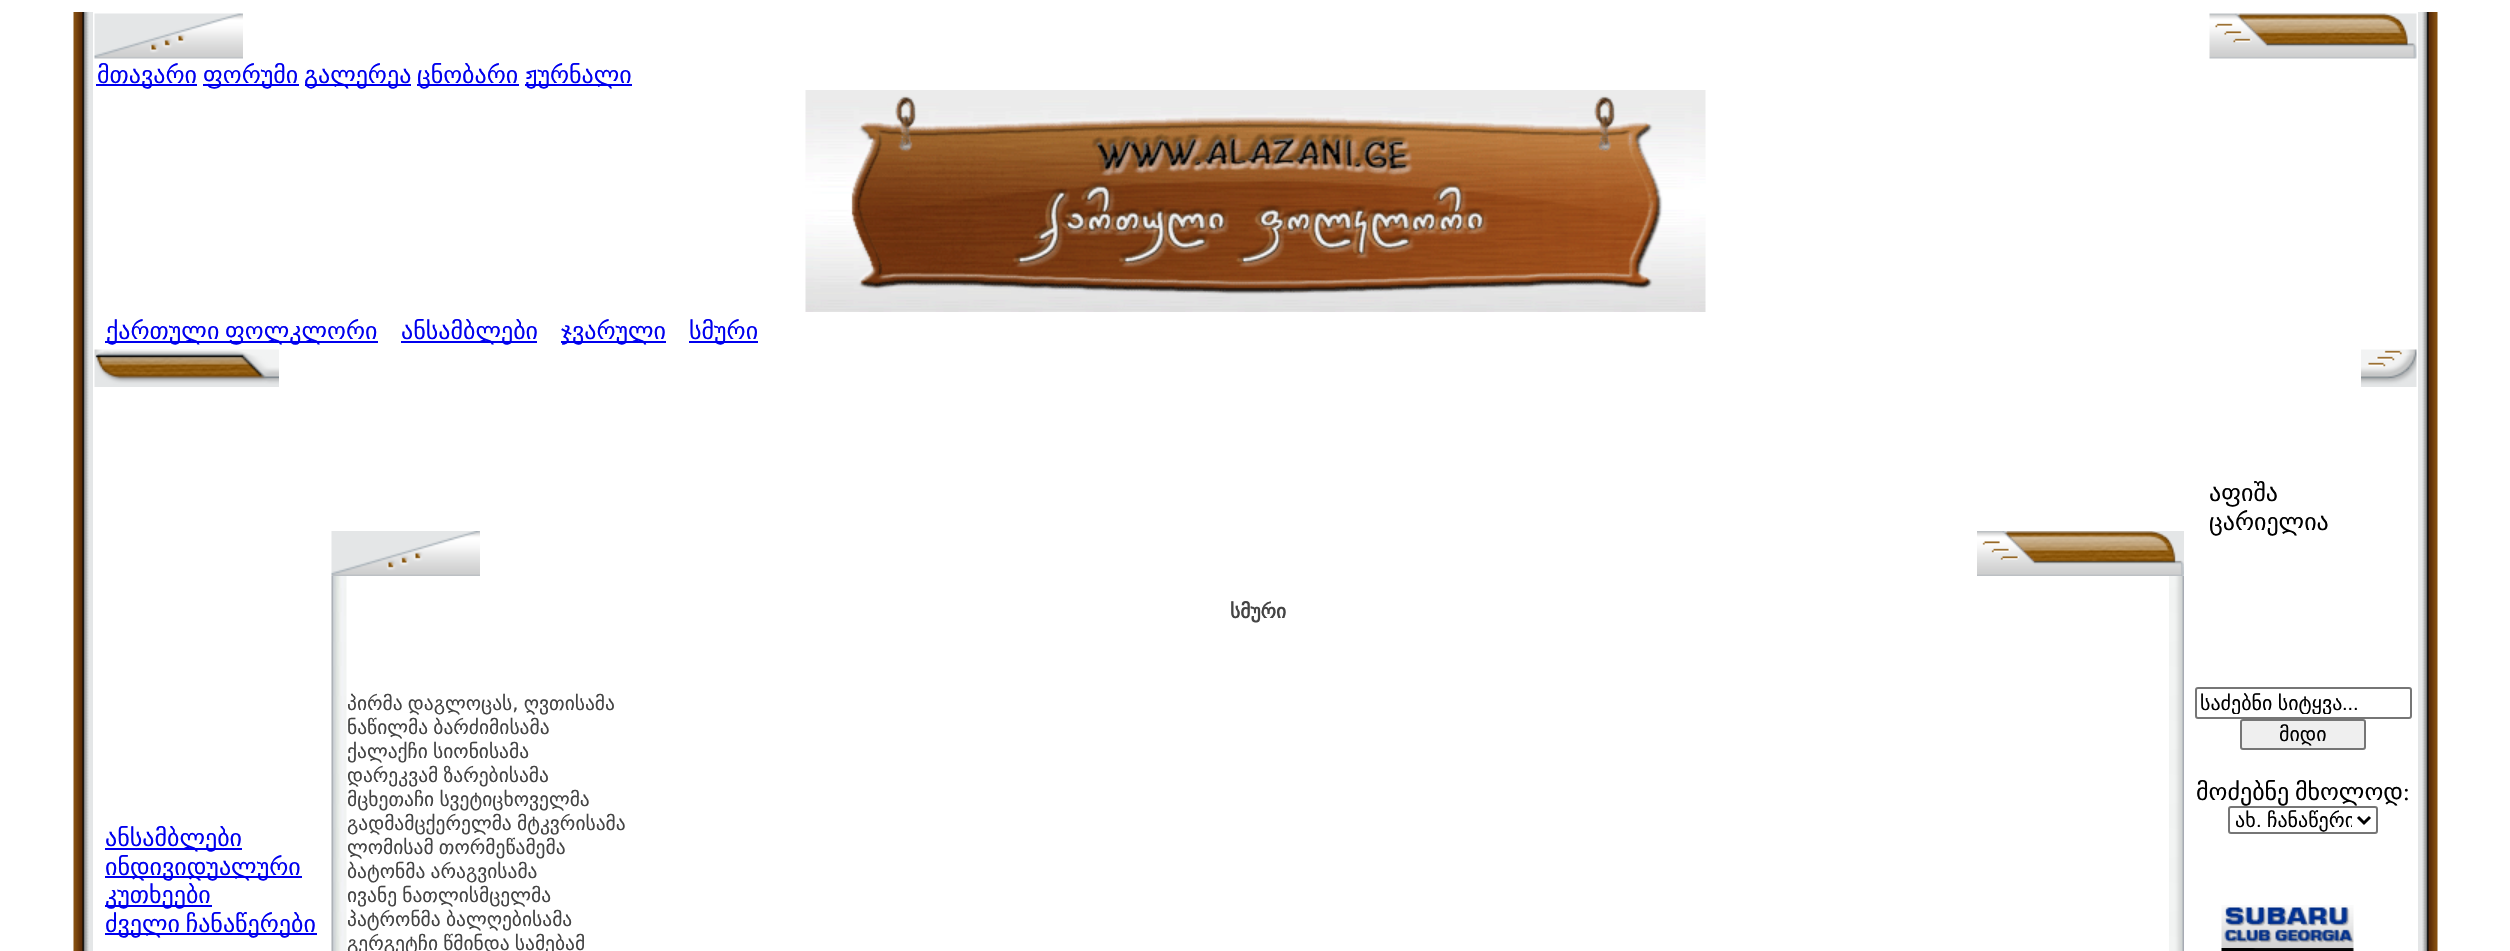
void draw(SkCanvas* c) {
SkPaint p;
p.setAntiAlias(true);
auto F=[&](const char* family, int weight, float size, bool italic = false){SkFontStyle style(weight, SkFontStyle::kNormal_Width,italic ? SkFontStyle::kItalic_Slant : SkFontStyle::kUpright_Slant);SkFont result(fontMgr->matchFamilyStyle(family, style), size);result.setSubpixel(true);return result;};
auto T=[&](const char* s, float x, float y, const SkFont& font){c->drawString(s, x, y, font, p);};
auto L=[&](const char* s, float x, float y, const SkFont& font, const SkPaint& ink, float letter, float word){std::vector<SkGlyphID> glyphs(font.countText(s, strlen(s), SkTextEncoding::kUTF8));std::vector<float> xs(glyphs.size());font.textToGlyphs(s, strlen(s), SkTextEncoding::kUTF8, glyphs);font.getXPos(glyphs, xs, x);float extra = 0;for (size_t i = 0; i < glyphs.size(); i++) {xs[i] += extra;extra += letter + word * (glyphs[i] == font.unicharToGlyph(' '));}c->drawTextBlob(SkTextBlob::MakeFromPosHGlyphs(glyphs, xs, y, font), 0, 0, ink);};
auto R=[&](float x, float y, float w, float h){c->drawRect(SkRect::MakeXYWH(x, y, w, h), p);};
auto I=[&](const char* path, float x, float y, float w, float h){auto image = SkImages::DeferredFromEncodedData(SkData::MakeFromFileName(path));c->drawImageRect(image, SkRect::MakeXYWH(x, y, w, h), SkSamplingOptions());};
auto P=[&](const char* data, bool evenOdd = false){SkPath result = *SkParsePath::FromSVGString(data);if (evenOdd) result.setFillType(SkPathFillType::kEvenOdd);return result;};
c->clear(0xffffffff);
I("1.png",73,12,20,939);
I("2.png",94,13,149,46);
I("3.png",2209,13,208,46);
p.setColor(0xff0000ee);
R(96,84,101,2);
auto f1 = F("DejaVu Sans",400,24);
T("მთავარი",97,83,f1);
R(203,84,96,2);
T("ფორუმი",203,83,f1);
R(305,84,106,2);
T("გალერეა",304,83,f1);
R(417,84,102,2);
T("ცნობარი",417,83,f1);
R(525,84,107,2);
T("ჟურნალი",525,83,f1);
I("4.png",805,90,901,222);
R(105,341,273,2);
T("ქართული",106,339,f1);
T("ფოლკლორი",225,339,f1);
R(401,341,136,2);
T("ანსამბლები",401,339,f1);
R(561,341,105,2);
T("ჯვარული",561,339,f1);
R(689,341,69,2);
T("სმური",689,339,f1);
I("5.png",94,349,185,38);
I("6.png",2361,349,56,38);
R(105,848,137,2);
T("ანსამბლები",105,846,f1);
R(105,876,197,2);
T("ინდივიდუალური",105,875,f1);
R(105,905,107,2);
T("კუთხეები",105,903,f1);
R(105,933,212,2);
L("ძველი ჩანაწერები",105,932,f1,p,0,-2);
I("7.png",331,531,149,45);
I("8.png",1977,531,207,45);
I("9.png",331,576,16,375);
auto f2 = F("DejaVu Sans",700,19.5);
p.setColor(0xff444444);
T("სმური",1230,618,f2);
auto f3 = F("DejaVu Sans",400,19.5);
L("პირმა დაგლოცას, ღვთისამა",347,710,f3,p,0,-1);
L("ნაწილმა ბარძიმისამა",347,734,f3,p,0,-1);
L("ქალაქჩი სიონისამა",347,758,f3,p,0,-1);
L("დარეკვამ ზარებისამა",347,782,f3,p,0,-1);
L("მცხეთაჩი სვეტიცხოველმა",347,806,f3,p,0,-1);
L("გადმამცქერელმა მტკვრისამა",347,830,f3,p,0,-1);
L("ლომისამ თორმეწამემა",347,854,f3,p,0,-1);
L("ბატონმა არაგვისამა",347,878,f3,p,0,-1);
L("ივანე ნათლისმცელმა",347,902,f3,p,0,-1);
L("პატრონმა ბალღებისამა",347,926,f3,p,0,-1);
L("გერგეტჩი წმინდა სამებამ",347,950,f3,p,0,-1);
I("10.png",2169,576,15,375);
p.setColor(0xff000000);
T("აფიშა",2209,501,f1);
T("ცარიელია",2209,530,f1);
p.setStroke(true);
p.setStrokeWidth(2);
p.setColor(0xff767676);
c->drawRoundRect(SkRect::MakeXYWH(2196,688,215,30),2,2,p);
c->save();
c->clipRect(SkRect::MakeXYWH(2201,692,205,22));
auto f4 = F("DejaVu Sans",400,20);
p.setStroke(false);
p.setColor(0xff000000);
L("საძებნი სიტყვა",2200,710,f4,p,0,-1);
c->restore();
auto f5 = F("Liberation Sans",400,20);
T("...",2342,710,f5);
p.setColor(0xffefefef);
c->drawRoundRect(SkRect::MakeXYWH(2241,720,124,29),2,2,p);
p.setStroke(true);
p.setColor(0xff767676);
c->drawRoundRect(SkRect::MakeXYWH(2241,720,124,29),2,2,p);
p.setStroke(false);
p.setColor(0xff000000);
T("მიდი",2279,741,f4);
L("მოძებნე მხოლოდ",2196,800,f1,p,0,-2);
auto f6 = F("Liberation Serif",400,24);
T(":",2403,800,f6);
p.setStroke(true);
p.setColor(0xff767676);
c->drawRoundRect(SkRect::MakeXYWH(2229,807,148,26),2,2,p);
p.setStrokeWidth(3);
p.setColor(0xff000000);
c->drawPath(P("M2358 817l6 6l6-6"),p);
p.setStroke(false);
T("ახ",2235,827,f4);
T(".",2256,827,f5);
c->save();
c->clipRect(SkRect::MakeXYWH(2235,807,117,26));
T("ჩანაწერი",2267,827,f4);
c->restore();
I("11.png",2221,905,133,43);
I("12.png",2221,948,133,3);
I("13.png",2418,12,20,939);
}
